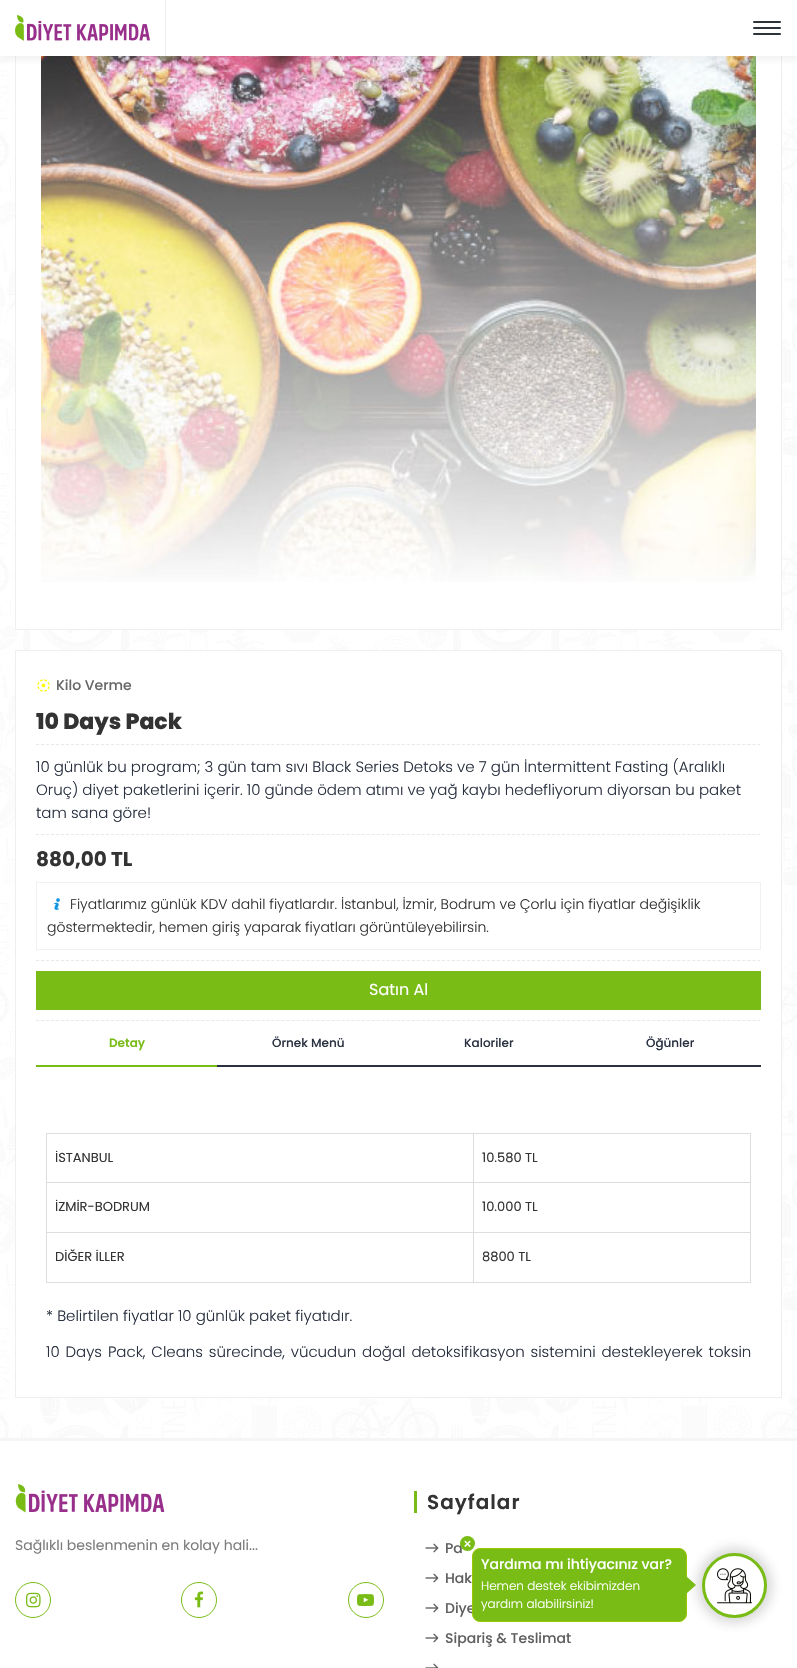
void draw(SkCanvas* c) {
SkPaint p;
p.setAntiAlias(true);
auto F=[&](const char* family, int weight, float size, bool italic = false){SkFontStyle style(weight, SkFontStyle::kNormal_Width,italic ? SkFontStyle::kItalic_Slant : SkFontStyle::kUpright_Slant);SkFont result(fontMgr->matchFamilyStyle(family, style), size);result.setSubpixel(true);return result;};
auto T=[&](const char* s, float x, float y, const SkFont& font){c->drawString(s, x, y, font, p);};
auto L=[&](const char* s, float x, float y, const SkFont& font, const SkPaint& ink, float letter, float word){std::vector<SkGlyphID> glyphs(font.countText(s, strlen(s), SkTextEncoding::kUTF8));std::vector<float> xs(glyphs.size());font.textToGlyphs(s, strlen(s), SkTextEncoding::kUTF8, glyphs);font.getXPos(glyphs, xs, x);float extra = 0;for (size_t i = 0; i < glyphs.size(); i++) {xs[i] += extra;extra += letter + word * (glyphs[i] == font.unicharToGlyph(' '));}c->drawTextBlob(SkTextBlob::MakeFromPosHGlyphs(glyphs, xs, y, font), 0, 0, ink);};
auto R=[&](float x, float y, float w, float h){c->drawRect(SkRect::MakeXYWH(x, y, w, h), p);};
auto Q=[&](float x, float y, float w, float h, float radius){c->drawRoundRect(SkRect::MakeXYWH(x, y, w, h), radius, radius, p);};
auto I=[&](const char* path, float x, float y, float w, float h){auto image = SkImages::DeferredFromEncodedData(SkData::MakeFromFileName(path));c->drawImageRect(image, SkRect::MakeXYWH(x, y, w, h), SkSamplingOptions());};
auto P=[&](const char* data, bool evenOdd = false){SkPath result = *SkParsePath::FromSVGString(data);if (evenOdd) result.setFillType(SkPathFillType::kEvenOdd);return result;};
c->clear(0xffffffff);
I("2.png",0,56,797,1382);
p.setColor(0xffffffff);
R(16,56,765,573);
p.setStroke(true);
p.setStrokeWidth(1);
p.setColor(0xffefefef);
c->drawRect(SkRect::MakeXYWH(15.5,-.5,766,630),p);
I("3.png",41,56,715,526);
p.setStroke(false);
p.setColor(0x0d2a3140);
p.setMaskFilter(SkMaskFilter::MakeBlur(kNormal_SkBlurStyle, 3));
c->drawRect(SkRect::MakeXYWH(-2,1,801,60),p);
p.setMaskFilter(nullptr);
p.setColor(0xffffffff);
R(0,0,797,56);
p.setColor(0xffefefef);
R(165,0,1,56);
I("1.png",15,15,135,26);
p.setColor(0xff2b343b);
Q(753,21,28,2,1);
Q(753,27,28,2,1);
Q(753,33,28,2,1);
p.setColor(0xffffffff);
c->drawRect(SkRect::MakeXYWH(15.5,650.5,766,747),p);
p.setStroke(true);
p.setColor(0xffefefef);
c->drawRect(SkRect::MakeXYWH(15.5,650.5,766,747),p);
p.setColor(0xffe8e8e8);
p.setPathEffect(SkDashPathEffect::Make({{3,2.01f}}, 0));
c->drawPath(P("M36 744.5h725"),p);
p.setPathEffect(nullptr);
I("4.png",37,679,13,13);
auto f1 = F("Poppins",500,14);
p.setStroke(false);
p.setColor(0xff686868);
T("Kilo Verme",56,690,f1);
auto f2 = F("Poppins",800,22);
p.setColor(0xff333333);
T("10 Days Pack",36,729,f2);
p.setStroke(true);
p.setColor(0xffe8e8e8);
p.setPathEffect(SkDashPathEffect::Make({{3,2.01f}}, 0));
c->drawPath(P("M36 834.5h725"),p);
p.setPathEffect(nullptr);
auto f3 = F("Poppins",300,15);
p.setStroke(false);
p.setColor(0xff2a3140);
T("10 günlük bu program; 3 gün tam sıvı Black Series Detoks ve 7 gün İntermittent Fasting (Aralıklı",36,772,f3);
T("Oruç) diyet paketlerini içerir. 10 günde ödem atımı ve yağ kaybı hedefliyorum diyorsan bu paket",36,795,f3);
T("tam sana göre!",36,818,f3);
p.setStroke(true);
p.setColor(0xffe8e8e8);
p.setPathEffect(SkDashPathEffect::Make({{3,2.01f}}, 0));
c->drawPath(P("M36 960.5h725"),p);
p.setPathEffect(nullptr);
auto f4 = F("Poppins",700,20);
p.setStroke(false);
p.setColor(0xff333333);
T("880,00 TL",36,866,f4);
p.setStroke(true);
p.setColor(0xfff1f1f1);
c->drawRect(SkRect::MakeXYWH(36.5,882.5,724,67),p);
I("5.png",54,898,6,12);
auto f5 = F("Poppins",300,14);
p.setStroke(false);
p.setColor(0xff333333);
T("Fiyatlarımız günlük KDV dahil fiyatlardır. İstanbul, İzmir, Bodrum ve Çorlu için fiyatlar değişiklik",70,909,f5);
T("göstermektedir, hemen giriş yaparak fiyatları görüntüleyebilirsin.",47,932,f5);
p.setColor(0xff79bc16);
R(36,971,725,39);
auto f6 = F("Poppins",400,16);
p.setColor(0xffffffff);
T("Satın Al",369,995,f6);
p.setStroke(true);
p.setColor(0xffe8e8e8);
p.setPathEffect(SkDashPathEffect::Make({{3,2.01f}}, 0));
c->drawPath(P("M36 1020.5h725"),p);
p.setPathEffect(nullptr);
p.setStroke(false);
p.setColor(0xff79bc16);
R(36,1065,181,2);
auto f7 = F("Poppins",600,12);
T("Detay",109,1047,f7);
p.setColor(0xff2a3140);
R(217,1065,544,2);
auto f8 = F("Poppins",500,12);
T("Örnek Menü",272,1047,f8);
T("Kaloriler",464,1047,f8);
T("Öğünler",646,1047,f8);
p.setColor(0xffdddddd);
R(46,1133,705,1);
R(750,1133,1,150);
R(46,1282,705,1);
R(46,1133,1,150);
auto f9 = F("Poppins",400,13);
p.setColor(0xff333333);
T("İSTANBUL",55,1162,f9);
p.setColor(0xffdddddd);
R(473,1182,278,1);
R(473,1232,278,1);
R(473,1232,1,51);
R(46,1232,428,1);
R(473,1182,1,51);
R(46,1182,428,1);
R(473,1133,1,50);
p.setColor(0xff333333);
T("10.580 TL",482,1162,f9);
T("İZMİR-BODRUM",55,1211,f9);
T("10.000 TL",482,1211,f9);
T("DİĞER İLLER",55,1261,f9);
T("8800 TL",482,1261,f9);
p.setColor(0xff2a3140);
T("* Belirtilen fiyatlar 10 günlük paket fiyatıdır.",46,1321,f3);
L("10 Days Pack, Cleans sürecinde, vücudun doğal detoksifikasyon sistemini destekleyerek toksin",46,1357,f3,p,0,1.75);
p.setColor(0xfff5f5f5);
R(0,1438,797,3);
I("6.png",15,1484,150,29);
auto f10 = F("Poppins",400,14);
p.setColor(0xff7c7c7c);
T("Sağlıklı beslenmenin en kolay hali...",15,1550,f10);
p.setStroke(true);
p.setColor(0xff79bc16);
c->drawCircle(33,1600,17.5,p);
I("7.png",26,1592,15,16);
c->drawCircle(199,1600,17.5,p);
I("8.png",194,1591,10,17);
c->drawCircle(366,1600,17.5,p);
I("9.png",357,1594,17,12);
p.setStroke(false);
R(414,1491,3,22);
auto f11 = F("Poppins",600,20);
p.setColor(0xff333333);
L("Sayfalar",427,1509,f11,p,1,0);
I("10.png",425,1543,14,10);
p.setColor(0xff5f5f5f);
T("Pa",445,1553,f1);
I("10.png",425,1573,14,10);
T("Hak",445,1583,f1);
I("10.png",425,1603,14,10);
T("Diye",445,1613,f1);
I("10.png",425,1633,14,10);
T("Sipariş & Teslimat",445,1643,f1);
I("11.png",425,1663,14,5);
p.setColor(0x384b4b4b);
p.setMaskFilter(SkMaskFilter::MakeBlur(kNormal_SkBlurStyle, 6));
c->drawRoundRect(SkRect::MakeXYWH(697,1548,75,75),37.5,37.5,p);
p.setMaskFilter(nullptr);
p.setColor(0xff79bc16);
c->drawRoundRect(SkRect::MakeXYWH(472.5,1548.5,214,73),7.5,7.5,p);
p.setStroke(true);
p.setColor(0xff9ac601);
c->drawRoundRect(SkRect::MakeXYWH(472.5,1548.5,214,73),7.5,7.5,p);
p.setStroke(false);
p.setColor(0xff79bc16);
c->drawCircle(467.5,1543.5,7.5,p);
p.setColor(0xffffffff);
T("×",463,1549,f10);
T("Yardıma mı ihtiyacınız var?",481,1569,f1);
auto f12 = F("Poppins",300,12);
T("Hemen destek ekibimizden",481,1590,f12);
T("yardım alabilirsiniz!",481,1608,f12);
p.setColor(0xff79bc16);
c->drawPath(P("M686 1594v-18l10 9z"),p);
p.setColor(0xffffffff);
c->drawCircle(734.5,1585.5,31,p);
p.setStroke(true);
p.setStrokeWidth(3);
p.setColor(0xff79bc16);
c->drawCircle(734.5,1585.5,31,p);
I("12.png",717,1568,35,36);
}
